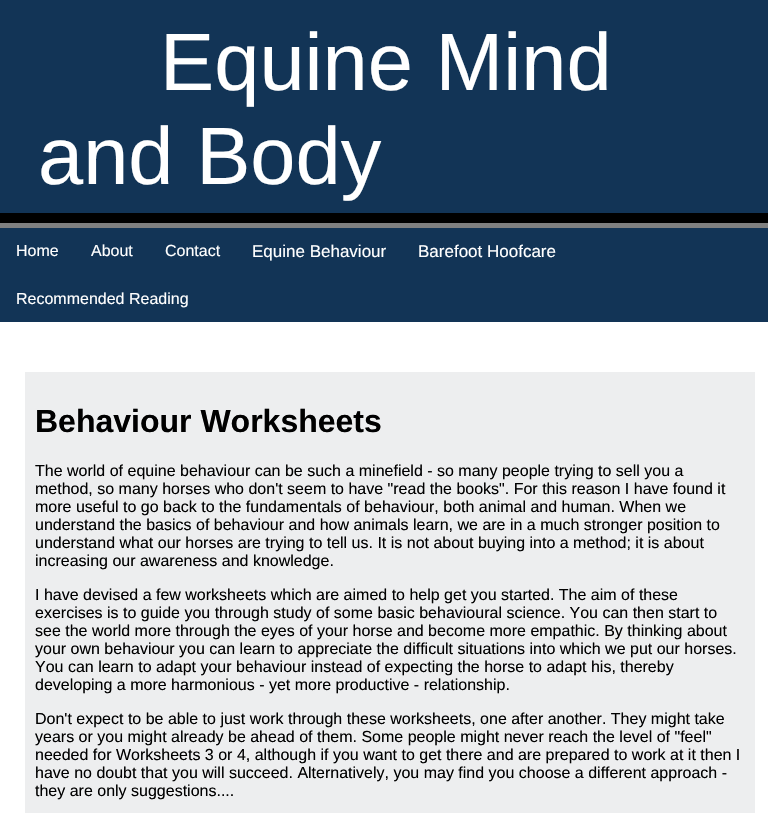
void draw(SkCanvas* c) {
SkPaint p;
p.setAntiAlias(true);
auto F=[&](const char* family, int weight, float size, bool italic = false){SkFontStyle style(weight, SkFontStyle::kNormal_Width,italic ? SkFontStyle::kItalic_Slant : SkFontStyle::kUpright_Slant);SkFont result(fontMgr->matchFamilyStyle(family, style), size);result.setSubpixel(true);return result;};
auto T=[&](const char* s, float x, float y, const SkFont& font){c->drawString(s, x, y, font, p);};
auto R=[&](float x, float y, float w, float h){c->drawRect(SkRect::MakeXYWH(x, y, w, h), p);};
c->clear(0xffffffff);
p.setColor(0xff123456);
R(0,0,768,213);
auto f1 = F("Liberation Sans",400,81.25);
p.setColor(0xffffffff);
T("Equine Mind",160,90,f1);
T("and Body",38,184,f1);
p.setColor(0xff000000);
R(0,213,768,10);
p.setColor(0xff808080);
R(0,223,768,5);
p.setColor(0xff123456);
R(0,228,768,94);
auto f2 = F("Liberation Sans",400,16);
p.setColor(0xffffffff);
T("Home",16,256,f2);
T("About",91,256,f2);
T("Contact",165,256,f2);
auto f3 = F("Liberation Sans",400,17);
T("Equine Behaviour",252,257,f3);
T("Barefoot Hoofcare",418,257,f3);
T("Recommended Reading",16,304,f2);
p.setColor(0xffedeeef);
R(25,372,730,441);
auto f4 = F("Liberation Sans",700,32);
p.setColor(0xff000000);
T("Behaviour Worksheets",35,432,f4);
T("The world of equine behaviour can be such a minefield - so many people trying to sell you a",35,476,f2);
T("method, so many horses who don't seem to have \"read the books\". For this reason I have found it",35,494,f2);
T("more useful to go back to the fundamentals of behaviour, both animal and human. When we",35,512,f2);
T("understand the basics of behaviour and how animals learn, we are in a much stronger position to",35,530,f2);
T("understand what our horses are trying to tell us. It is not about buying into a method; it is about",35,548,f2);
T("increasing our awareness and knowledge.",35,566,f2);
T("I have devised a few worksheets which are aimed to help get you started. The aim of these",35,600,f2);
T("exercises is to guide you through study of some basic behavioural science. You can then start to",35,618,f2);
T("see the world more through the eyes of your horse and become more empathic. By thinking about",35,636,f2);
T("your own behaviour you can learn to appreciate the difficult situations into which we put our horses.",35,654,f2);
T("You can learn to adapt your behaviour instead of expecting the horse to adapt his, thereby",35,672,f2);
T("developing a more harmonious - yet more productive - relationship.",35,690,f2);
T("Don't expect to be able to just work through these worksheets, one after another. They might take",35,724,f2);
T("years or you might already be ahead of them. Some people might never reach the level of \"feel\"",35,742,f2);
T("needed for Worksheets 3 or 4, although if you want to get there and are prepared to work at it then I",35,760,f2);
T("have no doubt that you will succeed. Alternatively, you may find you choose a different approach -",35,778,f2);
T("they are only suggestions....",35,796,f2);
}
